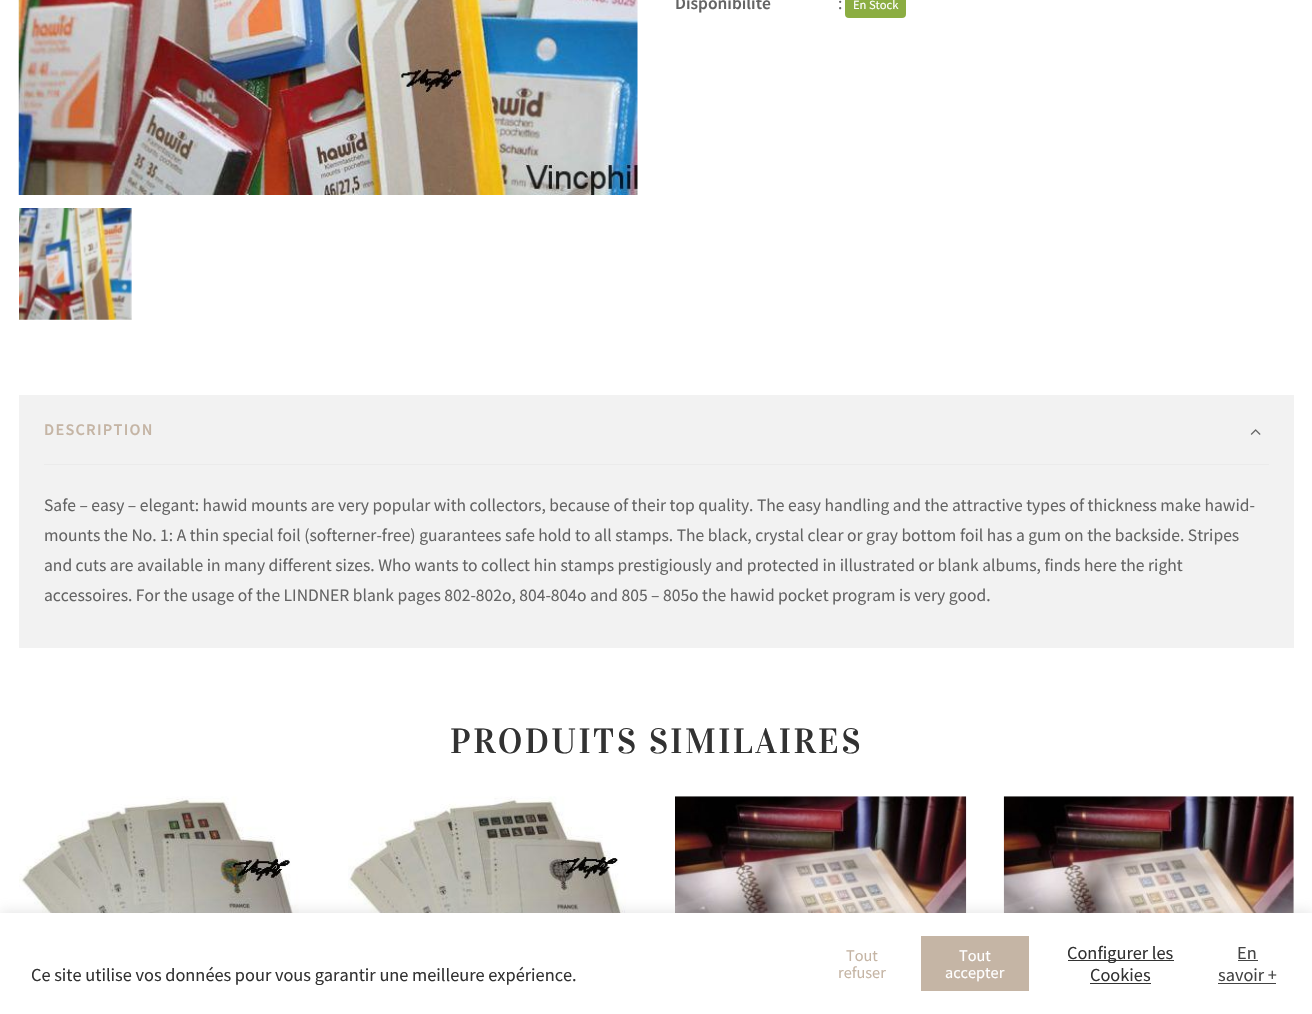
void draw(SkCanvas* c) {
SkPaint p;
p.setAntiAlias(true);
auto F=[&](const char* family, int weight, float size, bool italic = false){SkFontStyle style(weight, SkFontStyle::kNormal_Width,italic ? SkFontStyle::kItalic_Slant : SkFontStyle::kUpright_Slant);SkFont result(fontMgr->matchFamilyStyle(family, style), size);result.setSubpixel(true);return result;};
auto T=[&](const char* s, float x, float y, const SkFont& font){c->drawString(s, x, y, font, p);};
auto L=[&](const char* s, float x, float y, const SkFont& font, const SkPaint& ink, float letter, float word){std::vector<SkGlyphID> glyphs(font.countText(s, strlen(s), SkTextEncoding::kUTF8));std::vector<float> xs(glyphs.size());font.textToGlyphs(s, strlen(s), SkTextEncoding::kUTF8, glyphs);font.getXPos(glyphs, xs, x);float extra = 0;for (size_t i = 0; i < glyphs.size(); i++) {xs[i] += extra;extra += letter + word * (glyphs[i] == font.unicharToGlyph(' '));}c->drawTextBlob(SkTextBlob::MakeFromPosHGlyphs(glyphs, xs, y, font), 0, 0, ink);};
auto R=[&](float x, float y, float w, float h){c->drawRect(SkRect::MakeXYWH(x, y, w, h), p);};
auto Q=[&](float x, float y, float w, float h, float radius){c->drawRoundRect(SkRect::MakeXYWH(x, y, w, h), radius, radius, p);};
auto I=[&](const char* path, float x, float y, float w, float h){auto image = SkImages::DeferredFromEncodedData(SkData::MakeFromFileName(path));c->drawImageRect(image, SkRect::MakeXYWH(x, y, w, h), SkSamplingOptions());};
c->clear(0xffffffff);
I("1.png",18,0,620,195);
I("2.png",19,208,113,112);
auto f1 = F("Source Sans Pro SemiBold",600,17.5);
p.setColor(0xff646464);
T("Disponibilité",675,9,f1);
auto f2 = F("Source Sans Pro",400,17.5);
T(":",838,9,f2);
p.setColor(0xff8bad42);
Q(845,-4,61,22,4);
auto f3 = F("Source Sans Pro",400,12.5);
p.setColor(0xffffffff);
T("En Stock",853,9,f3);
p.setColor(0xfff2f2f2);
R(19,395,1275,253);
auto f4 = F("Source Sans Pro SemiBold",600,16.25);
p.setColor(0xffc5b5a5);
L("DESCRIPTION",44,435,f4,p,1.25,0);
I("3.png",1250,429,11,6);
p.setColor(0xffebebeb);
R(44,464,1225,1);
p.setColor(0xff646464);
T("Safe – easy – elegant: hawid mounts are very popular with collectors, because of their top quality. The easy handling and the attractive types of thickness make hawid-",44,511,f2);
T("mounts the No. 1: A thin special foil (softerner-free) guarantees safe hold to all stamps. The black, crystal clear or gray bottom foil has a gum on the backside. Stripes",44,541,f2);
T("and cuts are available in many different sizes. Who wants to collect hin stamps prestigiously and protected in illustrated or blank albums, finds here the right",44,571,f2);
T("accessoires. For the usage of the LINDNER blank pages 802-802o, 804-804o and 805 – 805o the hawid pocket program is very good.",44,601,f2);
auto f5 = F("Vidaloka",400,35);
p.setColor(0xff323232);
L("PRODUITS SIMILAIRES",450,753,f5,p,2.5,0);
I("4.png",19,796,291,117);
I("5.png",348,796,290,117);
I("6.png",675,796,292,117);
I("7.png",1003,796,291,117);
p.setColor(0x4dacabab);
p.setMaskFilter(SkMaskFilter::MakeBlur(kNormal_SkBlurStyle, 6));
c->drawRect(SkRect::MakeXYWH(0,911,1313,103),p);
p.setMaskFilter(nullptr);
p.setColor(0xffffffff);
R(0,913,1312,101);
auto f6 = F("Source Sans Pro",400,18.3);
p.setColor(0xff323232);
T("Ce site utilise vos données pour vous garantir une meilleure expérience.",31,981,f6);
auto f7 = F("Source Sans Pro",400,16.25);
p.setColor(0xffc5b5a5);
T("Tout",846,961,f7);
T("refuser",838,978,f7);
R(921,936,108,55);
p.setColor(0xffffffff);
T("Tout",959,961,f7);
T("accepter",945,978,f7);
p.setColor(0xff333333);
R(1068,960,106,1);
p.setColor(0xff323232);
T("Configurer les",1067,959,f6);
T("Cookies",1090,981,f6);
p.setColor(0xff333333);
R(1090,983,61,1);
p.setColor(0xff444444);
T("En",1237,959,f6);
R(1238,960,20,1);
T("savoir +",1218,981,f6);
R(1218,983,58,1);
}
